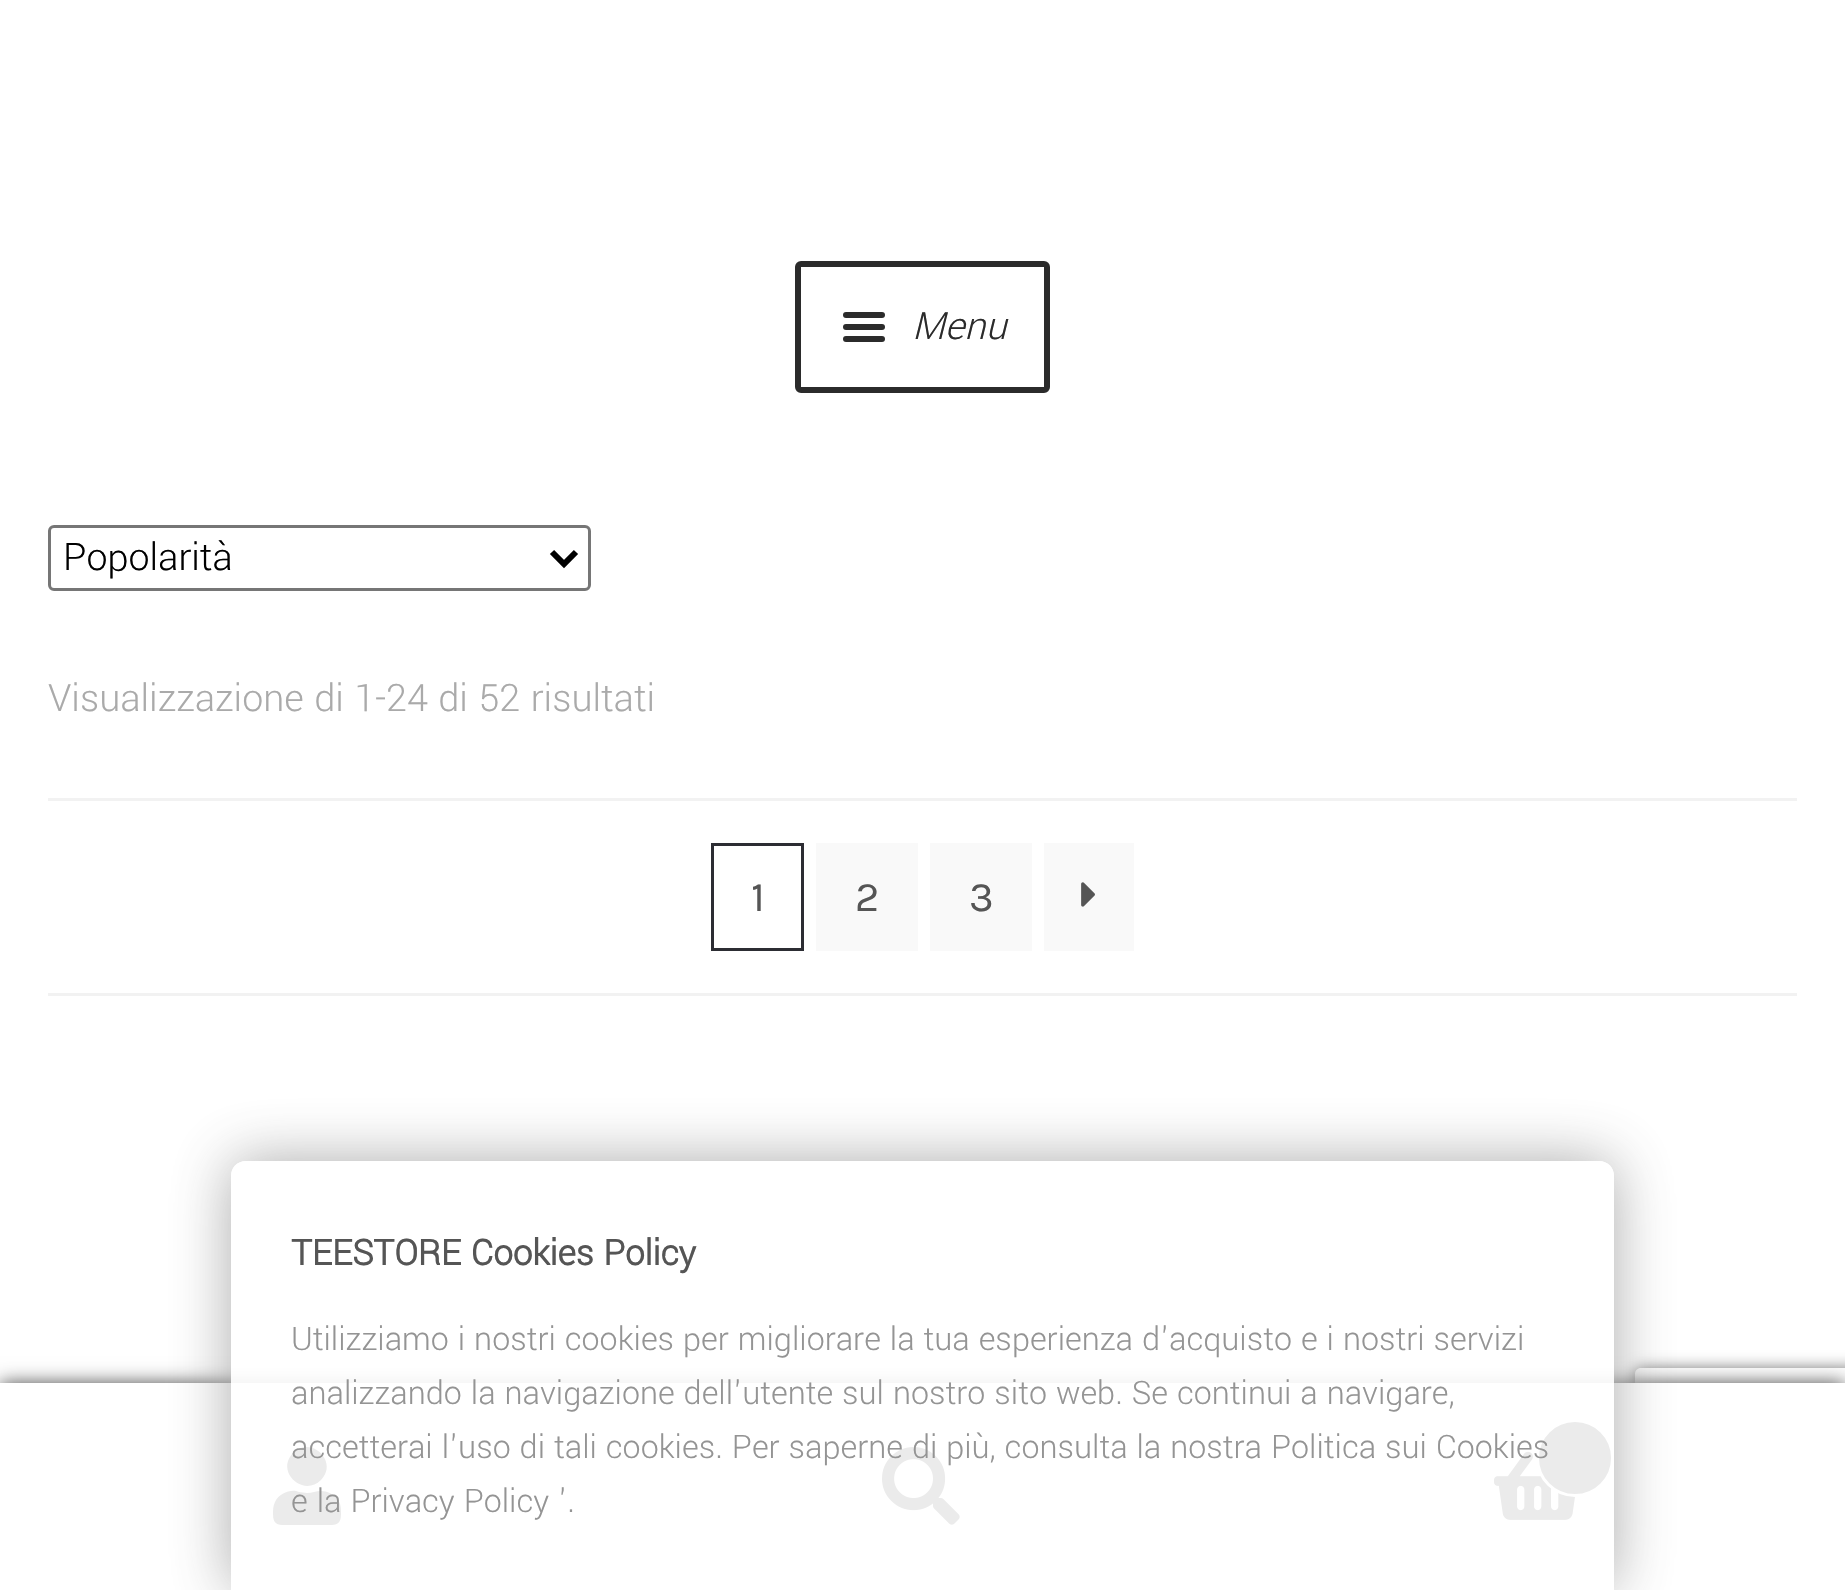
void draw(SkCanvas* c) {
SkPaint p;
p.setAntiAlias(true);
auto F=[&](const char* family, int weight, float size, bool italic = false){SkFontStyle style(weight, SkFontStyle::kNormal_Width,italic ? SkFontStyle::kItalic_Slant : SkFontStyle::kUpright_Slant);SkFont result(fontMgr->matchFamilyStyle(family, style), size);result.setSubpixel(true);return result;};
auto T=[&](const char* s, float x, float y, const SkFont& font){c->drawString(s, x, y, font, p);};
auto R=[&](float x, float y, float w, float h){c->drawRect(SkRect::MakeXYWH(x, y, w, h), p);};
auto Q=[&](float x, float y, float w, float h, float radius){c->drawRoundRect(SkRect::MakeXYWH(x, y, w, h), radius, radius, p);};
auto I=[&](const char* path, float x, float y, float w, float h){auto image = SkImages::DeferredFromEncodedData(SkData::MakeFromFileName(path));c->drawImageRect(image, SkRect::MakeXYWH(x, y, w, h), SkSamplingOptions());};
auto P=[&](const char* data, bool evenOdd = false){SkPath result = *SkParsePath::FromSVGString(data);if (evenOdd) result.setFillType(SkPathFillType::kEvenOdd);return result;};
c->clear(0xffffffff);
p.setStroke(true);
p.setStrokeWidth(6);
p.setColor(0xff2b2b2b);
c->drawRoundRect(SkRect::MakeXYWH(798,264,249,126),3,3,p);
p.setStroke(false);
Q(843,312,42,6,3);
Q(843,324,42,6,3);
auto f1 = F("Yantramanav",300,42,true);
T("Menu",912,339,f1);
Q(843,336,42,6,3);
p.setStroke(true);
p.setStrokeWidth(3);
p.setColor(0xff767676);
c->drawRoundRect(SkRect::MakeXYWH(49.5,526.5,540,63),4.5,4.5,p);
p.setStrokeWidth(6);
p.setColor(0xff000000);
c->drawPath(P("M552 552l12 12l12-12"),p);
auto f2 = F("Yantramanav",300,42);
p.setStroke(false);
T("Popolarità",63,570,f2);
p.setColor(0xffaaaaaa);
T("Visualizzazione di 1-24 di 52 risultati",48,711,f2);
p.setColor(0xfff2f2f2);
R(48,798,1749,3);
R(48,993,1749,3);
p.setStroke(true);
p.setStrokeWidth(3);
p.setColor(0xff2c2d33);
c->drawRect(SkRect::MakeXYWH(712.5,844.5,90,105),p);
auto f3 = F("Karla",400,42);
p.setStroke(false);
p.setColor(0xff555555);
T("1",751,911,f3);
p.setColor(0xfff9f9f9);
R(816,843,102,108);
p.setColor(0xff555555);
T("2",855,911,f3);
p.setColor(0xfff9f9f9);
R(930,843,102,108);
p.setColor(0xff555555);
T("3",969,911,f3);
p.setColor(0xfff9f9f9);
R(1044,843,90,108);
I("1.png",1081,882,14,25);
p.setColor(0xb3000000);
p.setMaskFilter(SkMaskFilter::MakeBlur(kNormal_SkBlurStyle, 9));
c->drawRect(SkRect::MakeXYWH(0,1383,1845,207),p);
p.setMaskFilter(nullptr);
c->save();
c->clipPath(P("M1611 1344h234v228h-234zm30 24h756c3.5 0 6 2.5 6 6v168c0 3.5-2.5 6-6 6h-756c-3.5 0-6-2.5-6-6v-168c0-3.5 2.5-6 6-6z",true),true);
p.setColor(0xff808080);
p.setMaskFilter(SkMaskFilter::MakeBlur(kNormal_SkBlurStyle, 7.5));
c->drawRoundRect(SkRect::MakeXYWH(1635,1368,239,180),6,6,p);
p.setMaskFilter(nullptr);
c->restore();
p.setColor(0xffffffff);
R(0,1383,1845,3);
R(0,1386,1845,204);
p.setColor(0xff2b2b2b);
c->drawPath(P("M321 1480c-18 18-46-9-28-27c18-18 46 9 28 27zm0 11c6 0 13 3 17 9c3 4 3 9 3 14c0 12-6 11-16 11h-36c-10 0-16 1-16-11c0-4 0-8 2-12c4-8 13-12 21-11l3 1l8 1c5 0 9-2 14-2z"),p);
I("2.png",882,1447,78,78);
I("3.png",1494,1451,82,69);
c->drawCircle(1575,1458,37.5,p);
p.setStroke(true);
p.setColor(0xffffffff);
c->drawCircle(1575,1458,37.5,p);
c->save();
c->clipPath(P("M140 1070h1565v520h-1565zm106 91h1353c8.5 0 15 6.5 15 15v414h-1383v-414c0-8.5 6.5-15 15-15z",true),true);
p.setStroke(false);
p.setColor(0xe6a1a1a1);
p.setMaskFilter(SkMaskFilter::MakeBlur(kNormal_SkBlurStyle, 30));
c->drawRoundRect(SkRect::MakeXYWH(231,1161,1383,429),15,15,p);
p.setMaskFilter(nullptr);
c->restore();
p.setColor(0xe6ffffff);
c->drawPath(P("M246 1161h1353c8.5 0 15 6.5 15 15v414h-1383v-414c0-8.5 6.5-15 15-15z"),p);
auto f4 = F("Yantramanav",700,39);
p.setColor(0xff555555);
T("TEESTORE Cookies Policy",291,1265,f4);
auto f5 = F("Yantramanav",300,36);
p.setColor(0xff949494);
T("Utilizziamo i nostri cookies per migliorare la tua esperienza d'acquisto e i nostri servizi",291,1350,f5);
T("analizzando la navigazione dell'utente sul nostro sito web. Se continui a navigare,",291,1404,f5);
T("accetterai l'uso di tali cookies. Per saperne di più, consulta la nostra Politica sui Cookies",291,1458,f5);
T("e la Privacy Policy '.",291,1512,f5);
}
